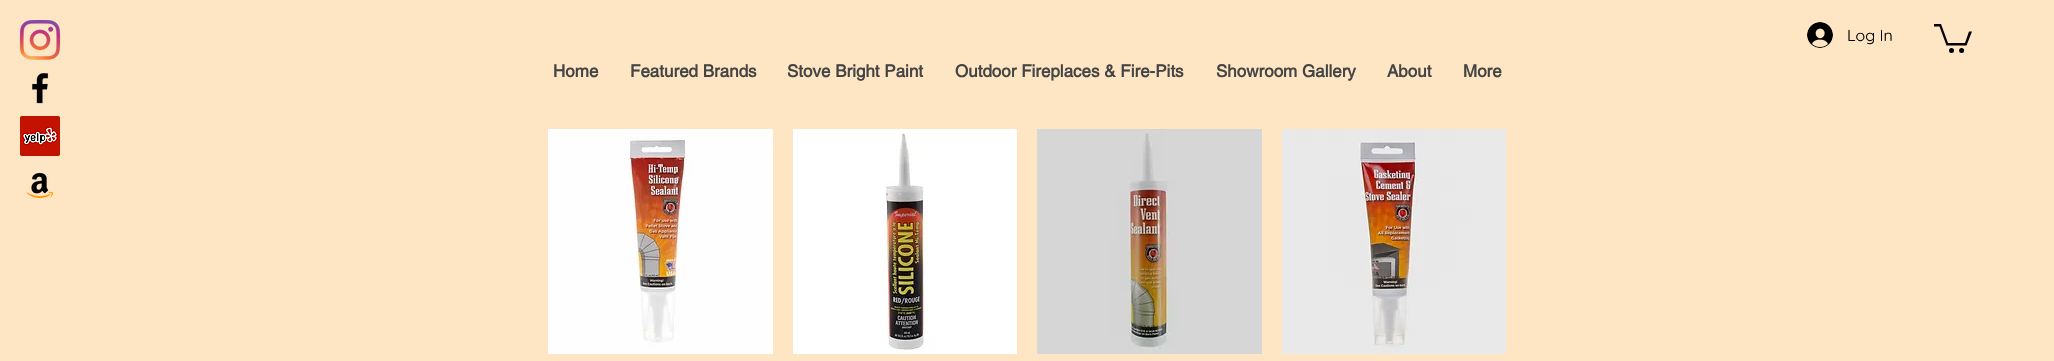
void draw(SkCanvas* c) {
SkPaint p;
p.setAntiAlias(true);
auto F=[&](const char* family, int weight, float size, bool italic = false){SkFontStyle style(weight, SkFontStyle::kNormal_Width,italic ? SkFontStyle::kItalic_Slant : SkFontStyle::kUpright_Slant);SkFont result(fontMgr->matchFamilyStyle(family, style), size);result.setSubpixel(true);return result;};
auto T=[&](const char* s, float x, float y, const SkFont& font){c->drawString(s, x, y, font, p);};
auto I=[&](const char* path, float x, float y, float w, float h){auto image = SkImages::DeferredFromEncodedData(SkData::MakeFromFileName(path));c->drawImageRect(image, SkRect::MakeXYWH(x, y, w, h), SkSamplingOptions());};
auto P=[&](const char* data, bool evenOdd = false){SkPath result = *SkParsePath::FromSVGString(data);if (evenOdd) result.setFillType(SkPathFillType::kEvenOdd);return result;};
c->clear(0xfffee6c4);
I("1.png",20,20,40,40);
I("2.png",32,73,17,31);
I("3.png",20,116,40,40);
I("4.png",26,172,28,27);
I("5.png",1807,22,26,26);
auto f1 = F("Quicksand",400,16);
p.setColor(0xff000000);
T("Log In",1847,41,f1);
c->drawPath(P("M1972 31.5l-5.5 14h-20l-7-19h-5.5v-2.5h7l7 19h17l4-11.5"),p);
c->drawCircle(1961.6,50.4,2.5,p);
c->drawCircle(1951.5,50.4,2.5,p);
auto f2 = F("helvetica",700,17);
p.setColor(0xff444444);
T("Home",553,77,f2);
T("Featured Brands",630,77,f2);
T("Stove Bright Paint",787,77,f2);
T("Outdoor Fireplaces & Fire-Pits",955,77,f2);
T("Showroom Gallery",1216,77,f2);
T("About",1387,77,f2);
T("More",1463,77,f2);
I("6.png",548,129,225,225);
I("7.png",793,129,224,225);
I("8.png",1037,129,225,225);
I("9.png",1282,129,224,225);
}
